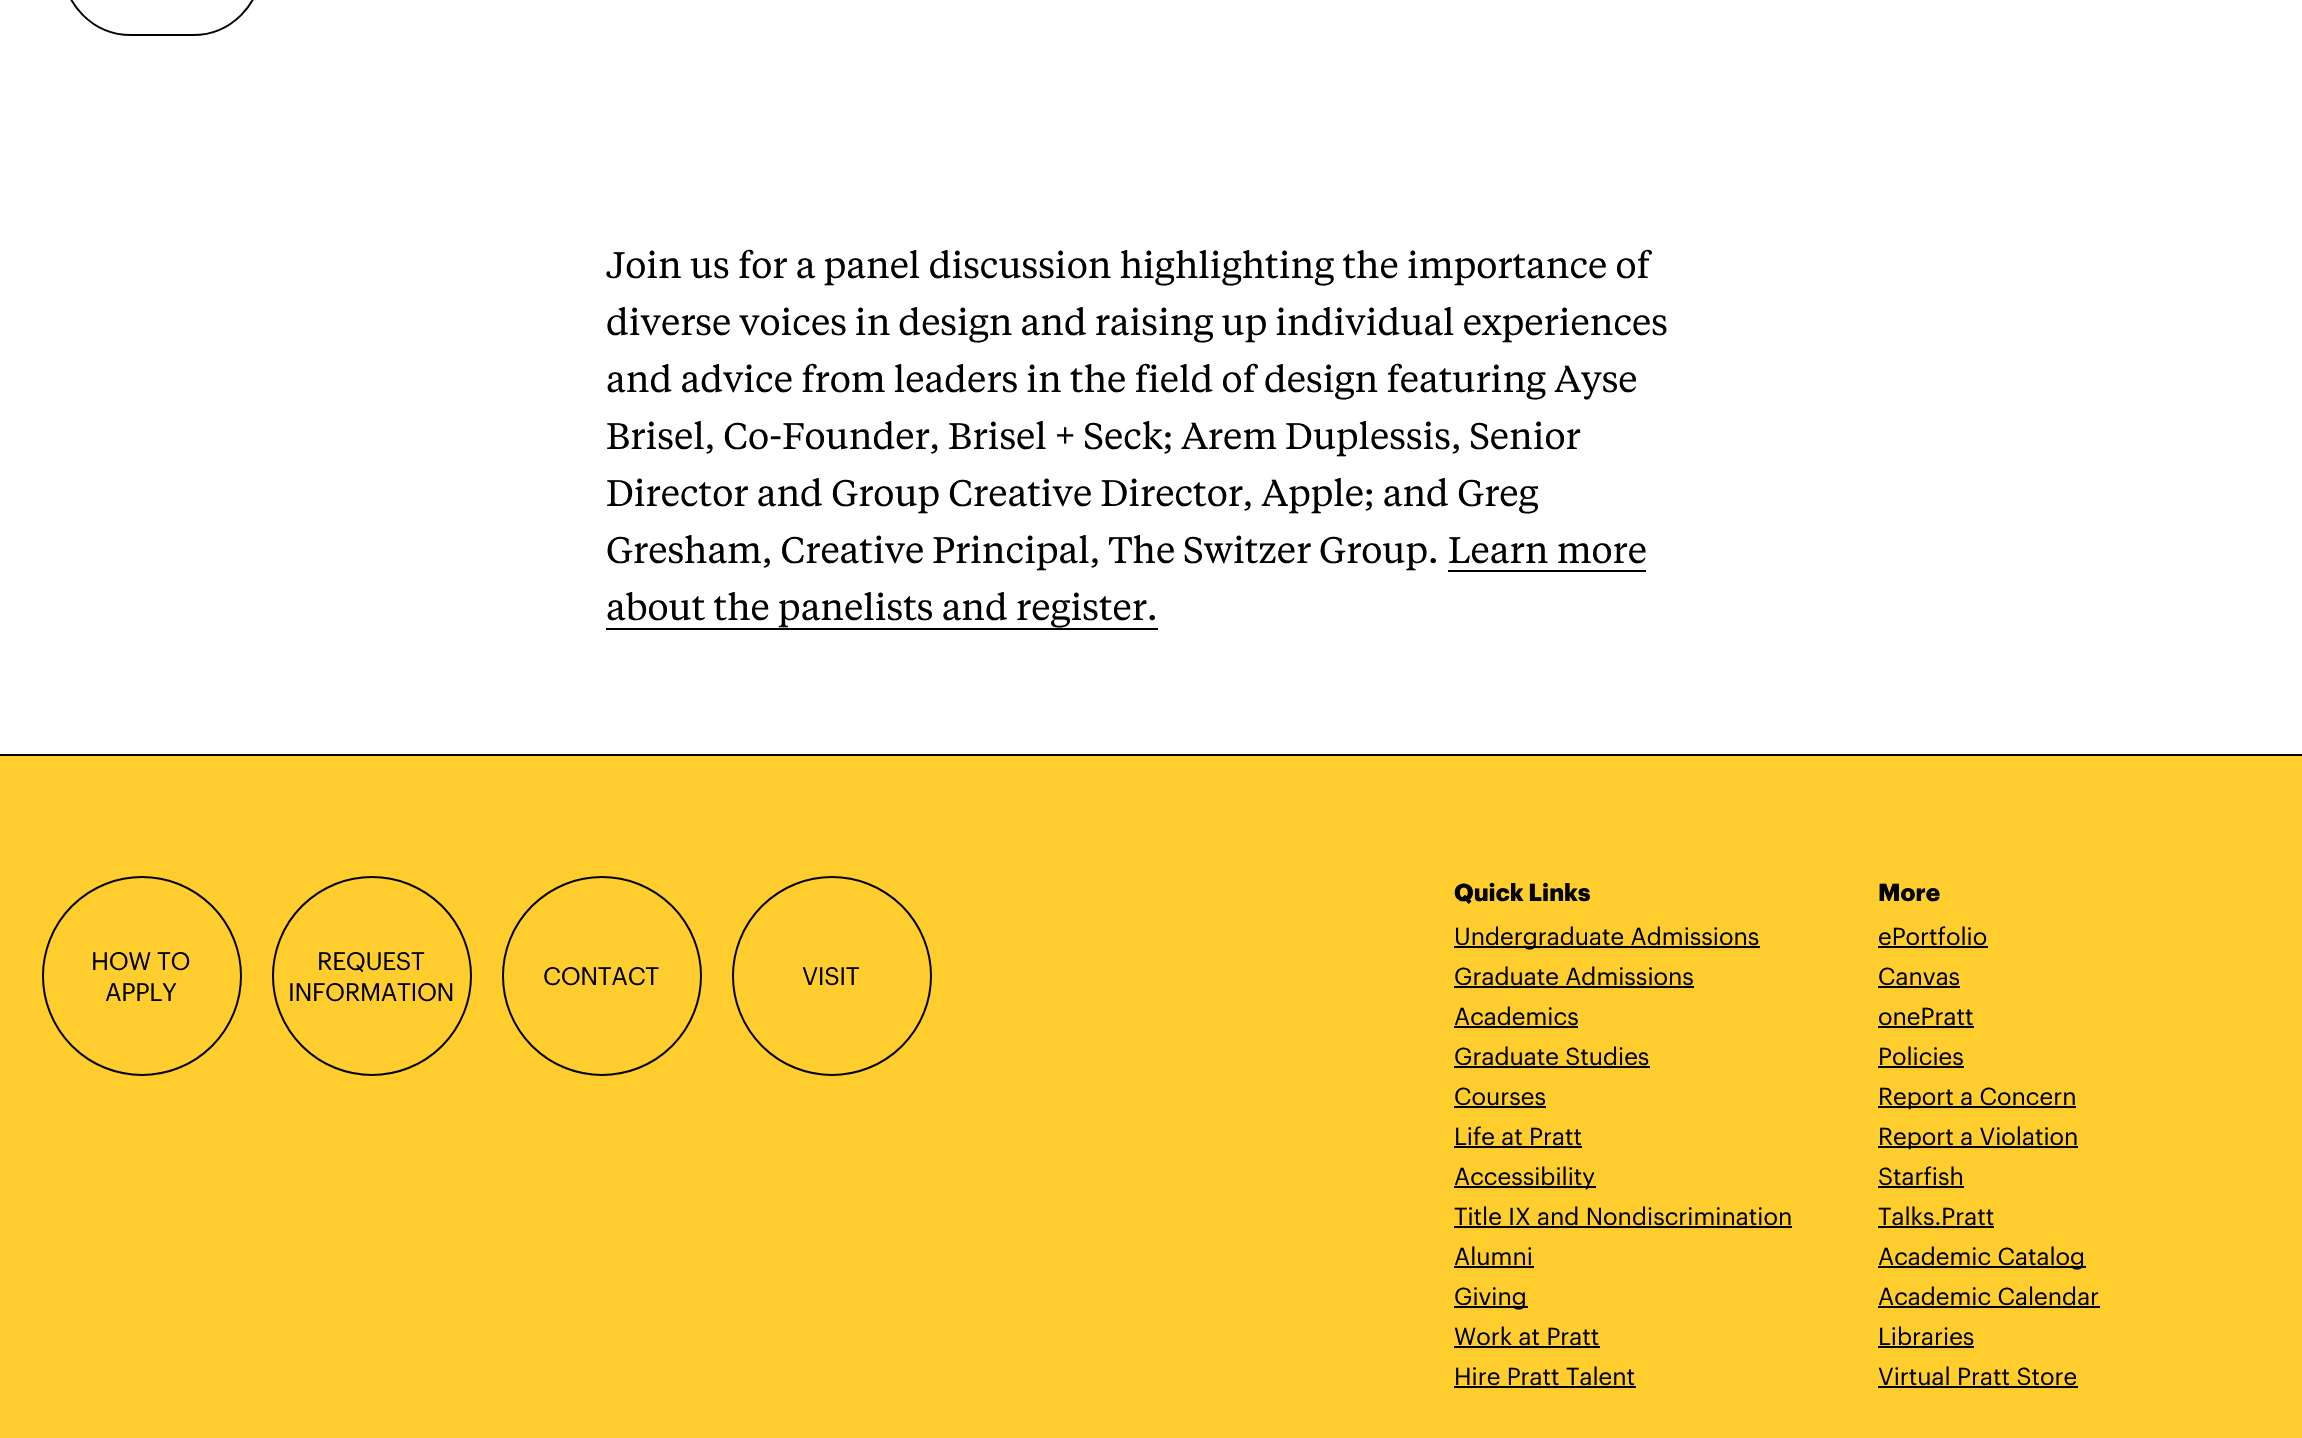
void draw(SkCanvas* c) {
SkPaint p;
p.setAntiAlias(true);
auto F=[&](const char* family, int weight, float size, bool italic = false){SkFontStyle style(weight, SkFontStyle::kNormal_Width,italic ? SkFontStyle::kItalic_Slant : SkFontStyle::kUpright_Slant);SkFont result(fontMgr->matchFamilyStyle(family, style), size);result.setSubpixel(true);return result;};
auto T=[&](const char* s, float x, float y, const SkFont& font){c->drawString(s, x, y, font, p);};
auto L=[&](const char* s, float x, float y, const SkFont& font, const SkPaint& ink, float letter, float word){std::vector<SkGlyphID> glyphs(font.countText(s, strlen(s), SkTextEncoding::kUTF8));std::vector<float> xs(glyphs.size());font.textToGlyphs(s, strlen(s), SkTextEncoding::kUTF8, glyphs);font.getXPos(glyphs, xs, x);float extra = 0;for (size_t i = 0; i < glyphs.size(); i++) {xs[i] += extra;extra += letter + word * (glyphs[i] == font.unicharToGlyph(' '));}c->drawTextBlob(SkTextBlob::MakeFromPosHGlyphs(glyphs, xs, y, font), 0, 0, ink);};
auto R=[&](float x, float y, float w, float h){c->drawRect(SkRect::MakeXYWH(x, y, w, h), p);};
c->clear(0xffffffff);
p.setColor(0xff000000);
R(0,754,2302,2);
p.setStroke(true);
p.setStrokeWidth(2);
c->drawRoundRect(SkRect::MakeXYWH(63,-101,198,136),99,99,p);
auto f1 = F("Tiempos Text",400,36.8);
p.setStroke(false);
T("Join us for a panel discussion highlighting the importance of",606,278,f1);
L("diverse voices in design and raising up individual experiences",606,335,f1,p,0,-.25);
T("and advice from leaders in the field of design featuring Ayse",606,392,f1);
L("Brisel, Co-Founder, Brisel + Seck; Arem Duplessis, Senior",606,449,f1,p,0,-.25);
T("Director and Group Creative Director, Apple; and Greg",606,506,f1);
L("Gresham, Creative Principal, The Switzer Group.",606,563,f1,p,0,-.25);
T("Learn more",1448,563,f1);
R(1448,570,198,2);
T("about the panelists and register.",606,620,f1);
R(606,628,552,2);
p.setColor(0xffffce2e);
R(0,756,2302,682);
p.setStroke(true);
p.setColor(0xff000000);
c->drawCircle(142,976,99,p);
auto f2 = F("Graphik",400,24.75);
p.setStroke(false);
L("HOW TO",91,970,f2,p,-.4,0);
L("APPLY",105,1001,f2,p,-.4,0);
p.setStroke(true);
c->drawCircle(372,976,99,p);
p.setStroke(false);
L("REQUEST",317,970,f2,p,-.4,0);
L("INFORMATION",288,1001,f2,p,-.4,0);
p.setStroke(true);
c->drawCircle(602,976,99,p);
p.setStroke(false);
L("CONTACT",543,985,f2,p,-.4,0);
p.setStroke(true);
c->drawCircle(832,976,99,p);
p.setStroke(false);
L("VISIT",802,985,f2,p,-.4,0);
auto f3 = F("Graphik",700,24);
T("Quick Links",1454,901,f3);
R(1454,946,306,2);
auto f4 = F("Graphik",400,24);
T("Undergraduate Admissions",1454,945,f4);
T("Graduate Admissions",1454,985,f4);
R(1454,986,240,2);
T("Academics",1454,1025,f4);
R(1454,1026,124,2);
T("Graduate Studies",1454,1065,f4);
R(1454,1066,196,2);
T("Courses",1454,1105,f4);
R(1454,1106,92,2);
T("Life at Pratt",1454,1145,f4);
R(1454,1146,128,2);
R(1454,1186,142,2);
T("Accessibility",1454,1185,f4);
T("Title IX and Nondiscrimination",1454,1225,f4);
R(1454,1226,338,2);
T("Alumni",1454,1265,f4);
R(1454,1266,80,2);
R(1454,1306,74,2);
T("Giving",1454,1305,f4);
T("Work at Pratt",1454,1345,f4);
R(1454,1346,146,2);
T("Hire Pratt Talent",1454,1385,f4);
R(1454,1386,182,2);
T("More",1878,901,f3);
T("ePortfolio",1878,945,f4);
R(1878,946,110,2);
T("Canvas",1878,985,f4);
R(1878,986,82,2);
T("onePratt",1878,1025,f4);
R(1878,1026,96,2);
T("Policies",1878,1065,f4);
R(1878,1066,86,2);
R(1878,1106,198,2);
T("Report a Concern",1878,1105,f4);
R(1878,1146,200,2);
T("Report a Violation",1878,1145,f4);
T("Starfish",1878,1185,f4);
R(1878,1186,86,2);
T("Talks.Pratt",1878,1225,f4);
R(1878,1226,116,2);
R(1878,1266,208,2);
T("Academic Catalog",1878,1265,f4);
T("Academic Calendar",1878,1305,f4);
R(1878,1306,222,2);
T("Libraries",1878,1345,f4);
R(1878,1346,96,2);
T("Virtual Pratt Store",1878,1385,f4);
R(1878,1386,200,2);
}
